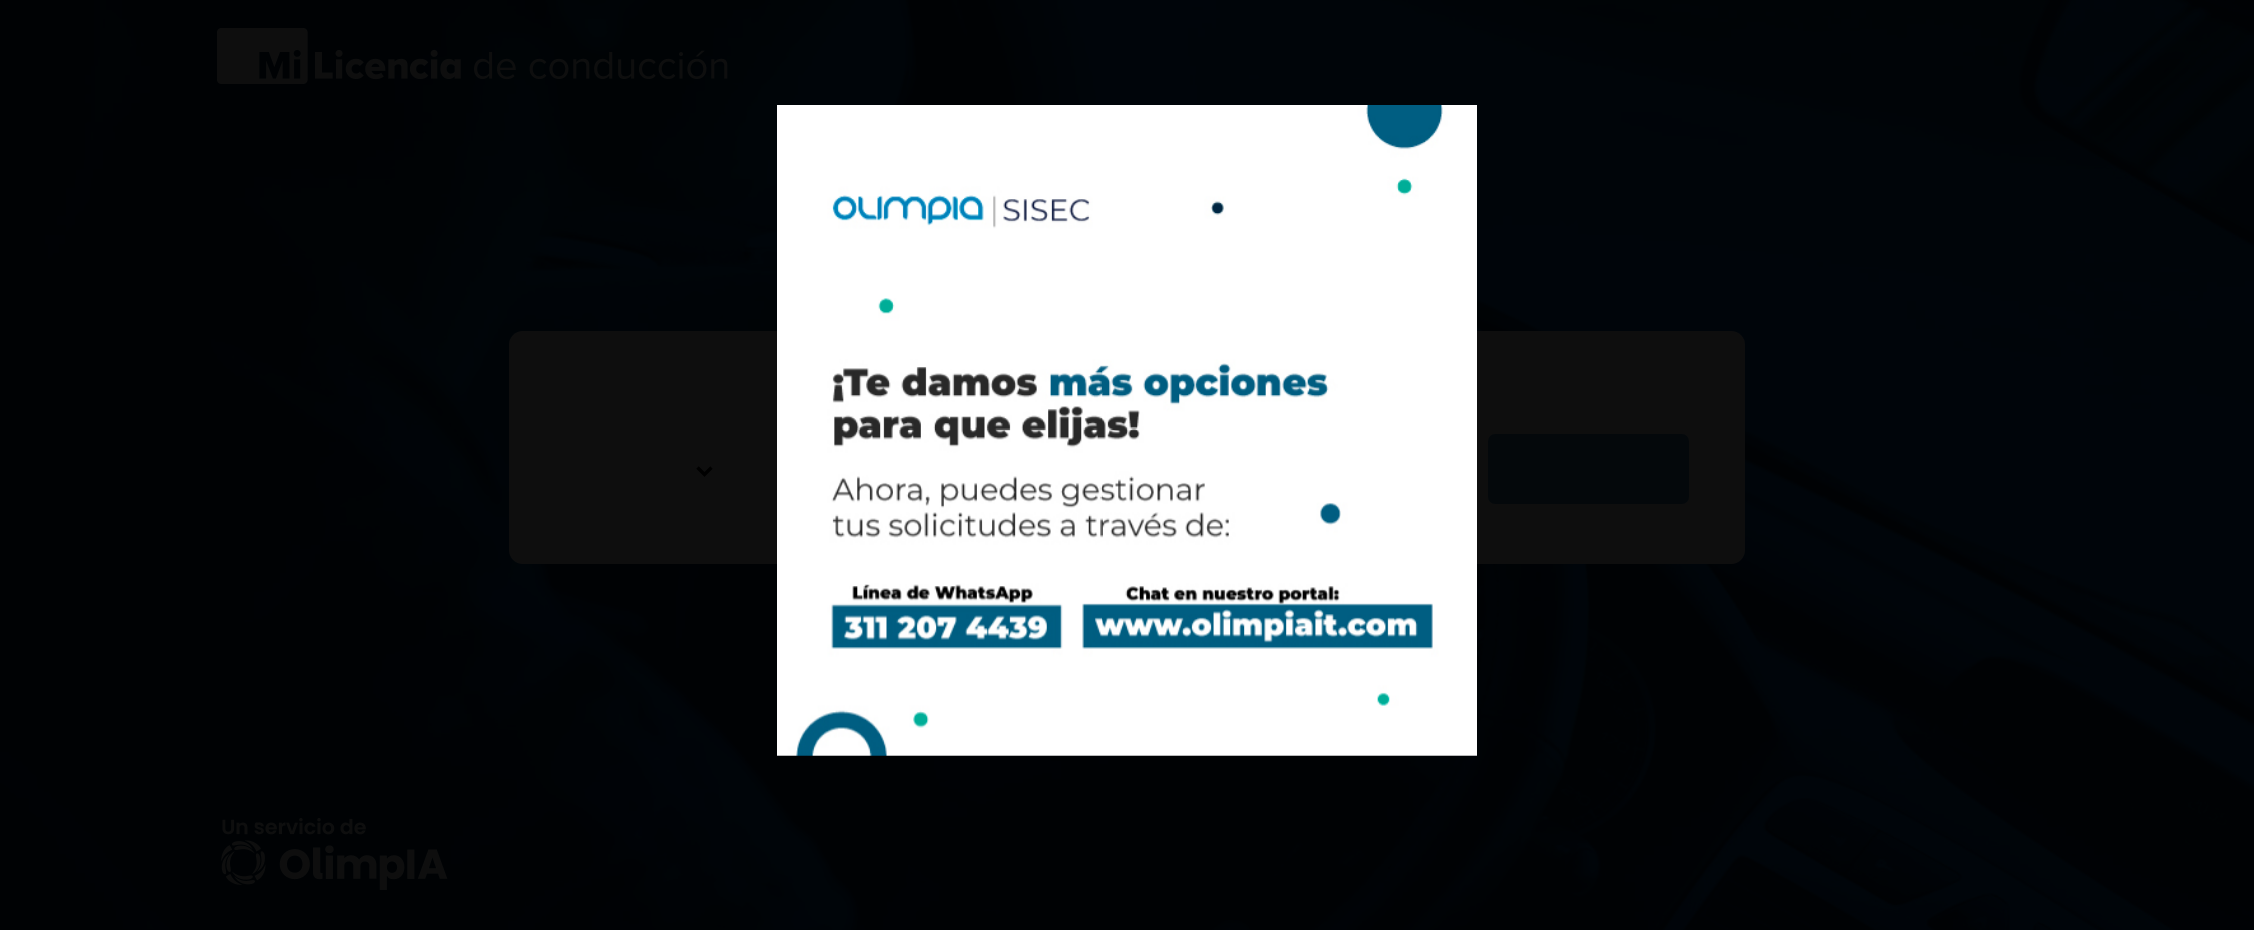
void draw(SkCanvas* c) {
SkPaint p;
p.setAntiAlias(true);
auto Q=[&](float x, float y, float w, float h, float radius){c->drawRoundRect(SkRect::MakeXYWH(x, y, w, h), radius, radius, p);};
auto I=[&](const char* path, float x, float y, float w, float h){auto image = SkImages::DeferredFromEncodedData(SkData::MakeFromFileName(path));c->drawImageRect(image, SkRect::MakeXYWH(x, y, w, h), SkSamplingOptions());};
auto P=[&](const char* data, bool evenOdd = false){SkPath result = *SkParsePath::FromSVGString(data);if (evenOdd) result.setFillType(SkPathFillType::kEvenOdd);return result;};
c->clear(0xffffffff);
I("1.png",0,0,2254,930);
p.setColor(0xff0e0e0e);
Q(509,331,1236,233,14);
p.setStroke(true);
p.setStrokeWidth(3.5);
p.setColor(0xff000000);
c->drawPath(P("M697.5 467.5l7 7l7-7"),p);
p.setStroke(false);
p.setColor(0xff04080b);
Q(1488,434,201,70,7);
I("2.png",221,818,227,72);
I("3.png",777,105,700,651);
I("4.png",217,28,511,56);
}
